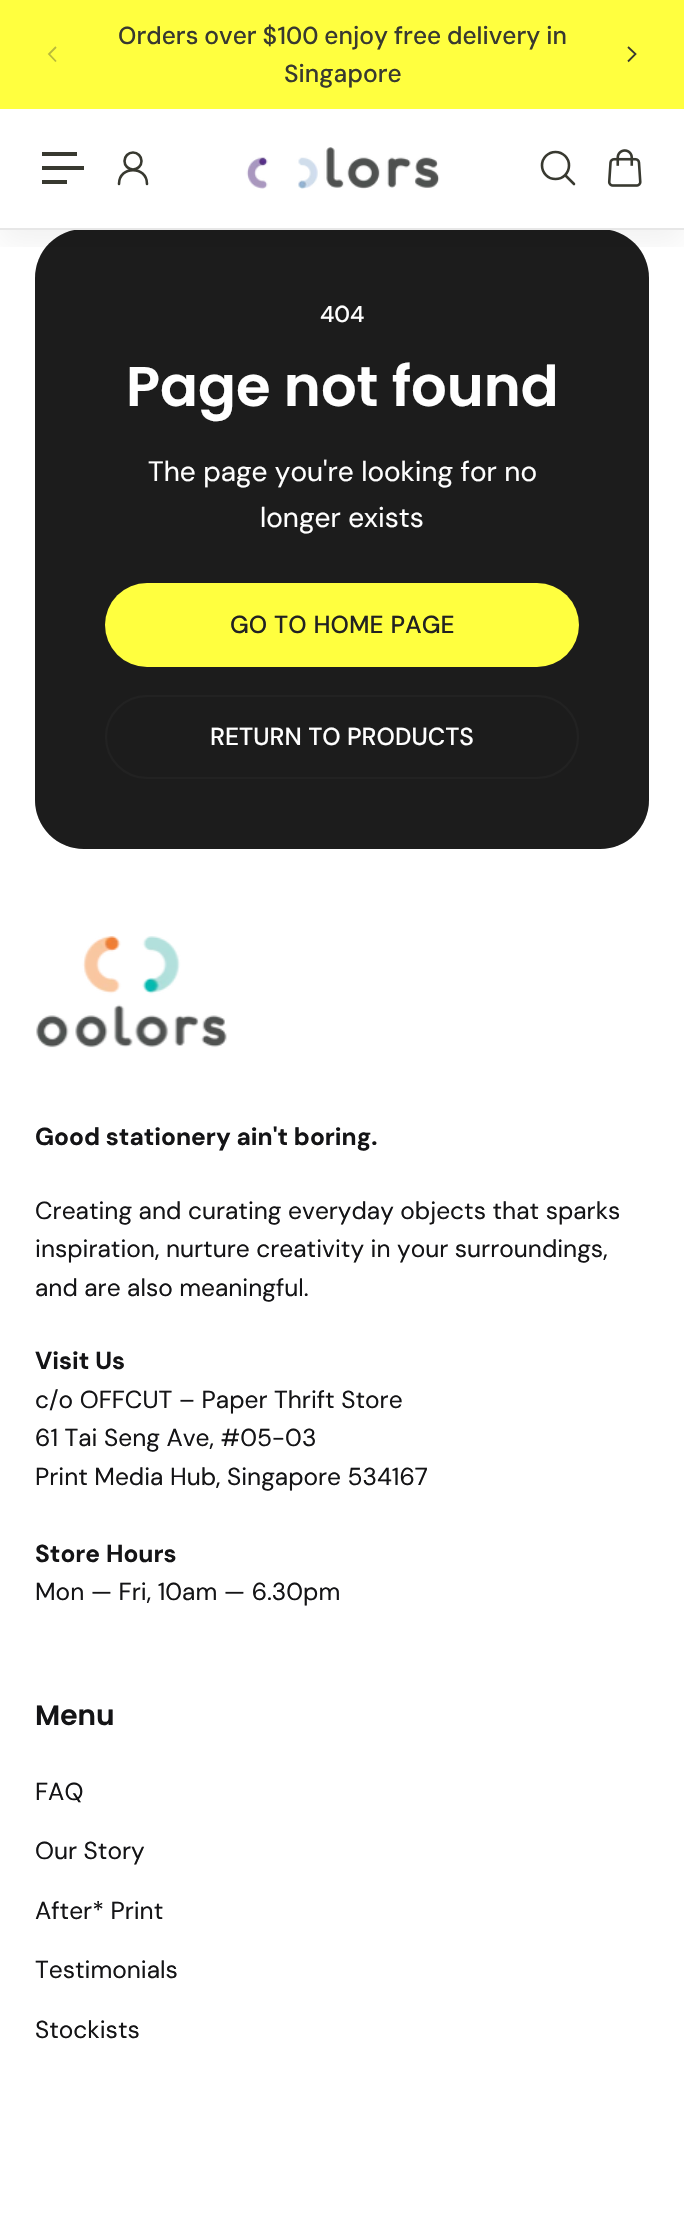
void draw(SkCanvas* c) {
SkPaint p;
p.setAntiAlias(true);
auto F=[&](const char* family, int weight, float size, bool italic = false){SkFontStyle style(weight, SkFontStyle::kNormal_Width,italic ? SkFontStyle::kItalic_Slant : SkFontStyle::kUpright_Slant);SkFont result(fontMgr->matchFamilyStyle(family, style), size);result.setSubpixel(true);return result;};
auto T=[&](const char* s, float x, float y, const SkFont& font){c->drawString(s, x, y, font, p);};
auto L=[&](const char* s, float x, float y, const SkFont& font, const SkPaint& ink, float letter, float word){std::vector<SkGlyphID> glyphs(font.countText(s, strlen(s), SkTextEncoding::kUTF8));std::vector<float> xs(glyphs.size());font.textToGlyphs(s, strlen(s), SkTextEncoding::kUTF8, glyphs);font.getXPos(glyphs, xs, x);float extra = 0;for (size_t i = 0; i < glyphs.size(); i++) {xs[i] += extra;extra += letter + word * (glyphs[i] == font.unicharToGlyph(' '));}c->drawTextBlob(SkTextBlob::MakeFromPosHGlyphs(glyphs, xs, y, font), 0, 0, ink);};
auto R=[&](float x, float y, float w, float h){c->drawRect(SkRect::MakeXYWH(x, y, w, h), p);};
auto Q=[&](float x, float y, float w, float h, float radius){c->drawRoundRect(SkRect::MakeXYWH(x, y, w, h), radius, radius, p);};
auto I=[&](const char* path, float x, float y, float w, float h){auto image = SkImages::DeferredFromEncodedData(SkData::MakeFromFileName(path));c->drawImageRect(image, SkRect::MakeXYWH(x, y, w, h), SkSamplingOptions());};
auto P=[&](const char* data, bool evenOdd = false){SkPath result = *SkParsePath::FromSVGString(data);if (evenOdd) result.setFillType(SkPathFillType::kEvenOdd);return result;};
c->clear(0xffffffff);
p.setColor(0xffffff3f);
R(0,0,684,109);
p.setStroke(true);
p.setStrokeWidth(1.8);
p.setColor(0xffb9ba3a);
c->drawPath(P("M56 47l-7 7l7 7.5"),p);
auto f1 = F("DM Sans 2",500,24.5);
p.setStroke(false);
p.setColor(0xff383930);
L("Orders over $100 enjoy free delivery in",118,44,f1,p,0,-.5);
T("Singapore",284,82,f1);
p.setStroke(true);
c->drawPath(P("M628 47l7.5 7l-7.5 7.5"),p);
p.setStroke(false);
p.setColor(0xff222222);
Q(35,229,614,620,49);
p.setColor(0x33000000);
Q(35,229,614,620,49);
c->save();
c->clipRect(SkRect::MakeXYWH(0,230,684,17));
p.setColor(0x0d000000);
p.setMaskFilter(SkMaskFilter::MakeBlur(kNormal_SkBlurStyle, 14));
c->drawRect(SkRect::MakeXYWH(0,123,684,120),p);
p.setMaskFilter(nullptr);
c->restore();
p.setColor(0xff383930);
R(42,152,35,4);
R(42,166,42,4);
R(42,180,25,4);
p.setStroke(true);
p.setStrokeWidth(2.6);
c->drawCircle(133,161,8.5,p);
p.setStrokeCap(SkPaint::kRound_Cap);
p.setStrokeJoin(SkPaint::kRound_Join);
c->drawPath(P("M147 184c0-18.5-28-18.5-28 0"),p);
I("1.png",246,147,194,42);
p.setStrokeCap(SkPaint::kButt_Cap);
p.setStrokeJoin(SkPaint::kMiter_Join);
c->drawCircle(555.5,165.5,13.5,p);
p.setStrokeCap(SkPaint::kRound_Cap);
p.setStrokeJoin(SkPaint::kRound_Join);
c->drawPath(P("M565.5 175.5l8.5 8.5"),p);
I("2.png",607,149,35,38);
p.setStroke(false);
p.setColor(0xffe7e7e7);
R(0,228,684,2);
auto f2 = F("DM Sans",500,23);
p.setColor(0xffffffff);
T("404",320,322,f2);
auto f3 = F("Poppins",600,56);
T("Page not found",126,406,f3);
auto f4 = F("DM Sans 2",400,28);
T("The page you're looking for no",148,481,f4);
T("longer exists",260,527,f4);
p.setColor(0xffffff3f);
Q(105,583,474,84,42);
p.setColor(0xff222222);
L("GO TO HOME PAGE",230,633,f1,p,0,.5);
p.setStroke(true);
p.setStrokeWidth(2);
p.setStrokeCap(SkPaint::kButt_Cap);
p.setStrokeJoin(SkPaint::kMiter_Join);
c->drawRoundRect(SkRect::MakeXYWH(106,696,472,82),41,41,p);
p.setStroke(false);
p.setColor(0xffffffff);
T("RETURN TO PRODUCTS",210,745,f1);
I("3.png",36,936,191,112);
auto f5 = F("DM Sans",700,24.5);
p.setColor(0xff141416);
T("Good stationery ain't boring.",35,1145,f5);
auto f6 = F("DM Sans",400,24.5);
T("Creating and curating everyday objects that sparks",35,1219,f6);
T("inspiration, nurture creativity in your surroundings,",35,1257,f6);
T("and are also meaningful.",35,1296,f6);
T("Visit Us",35,1369,f5);
T("c/o OFFCUT – Paper Thrift Store",35,1408,f6);
T("61 Tai Seng Ave, #05-03",35,1446,f6);
T("Print Media Hub, Singapore 534167",35,1485,f6);
T("Store Hours",35,1562,f5);
T("Mon — Fri, 10am — 6.30pm",35,1600,f6);
auto f7 = F("Poppins",600,28);
T("Menu",35,1725,f7);
T("FAQ",35,1800,f6);
T("Our Story",35,1859,f6);
T("After* Print",35,1919,f6);
T("Testimonials",35,1978,f6);
T("Stockists",35,2038,f6);
}
